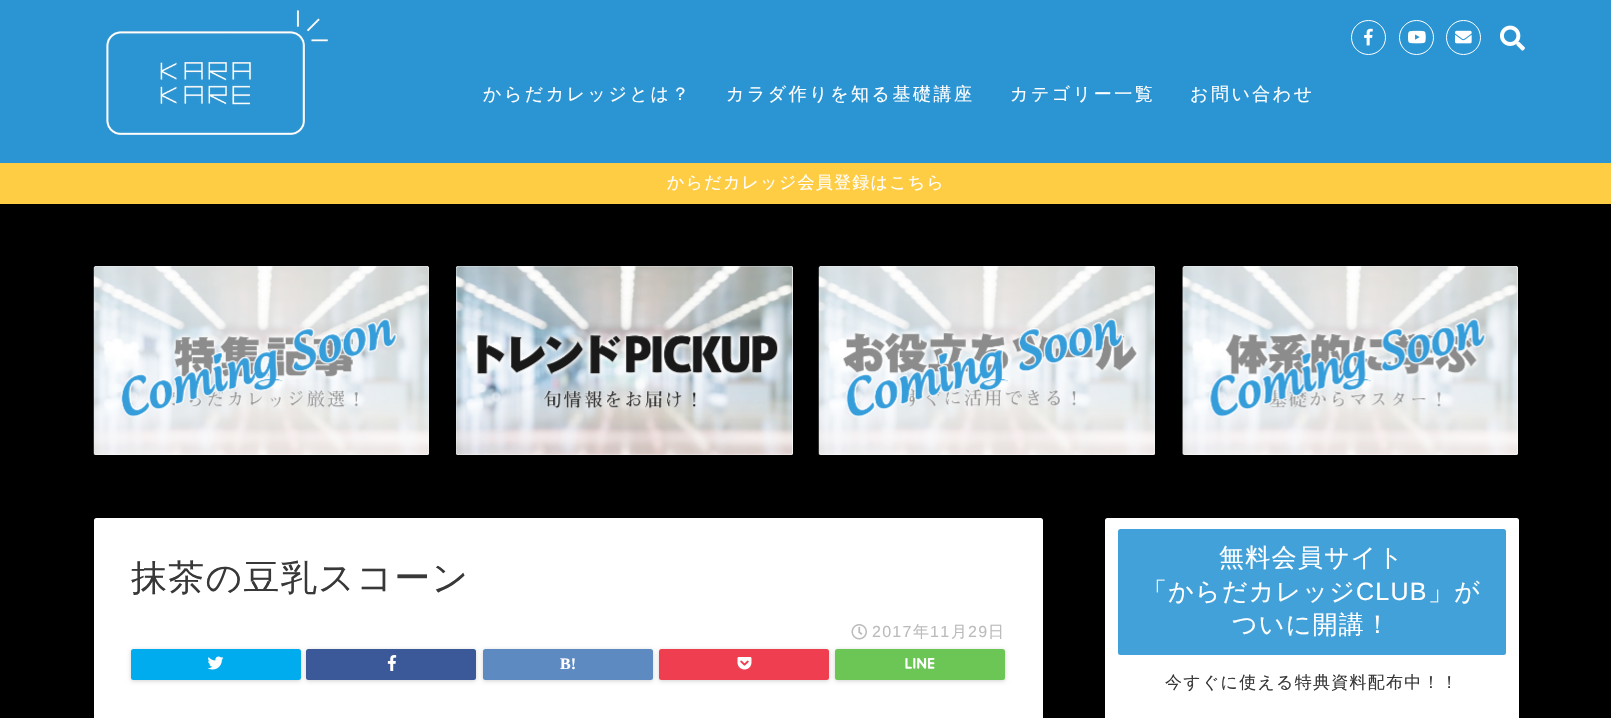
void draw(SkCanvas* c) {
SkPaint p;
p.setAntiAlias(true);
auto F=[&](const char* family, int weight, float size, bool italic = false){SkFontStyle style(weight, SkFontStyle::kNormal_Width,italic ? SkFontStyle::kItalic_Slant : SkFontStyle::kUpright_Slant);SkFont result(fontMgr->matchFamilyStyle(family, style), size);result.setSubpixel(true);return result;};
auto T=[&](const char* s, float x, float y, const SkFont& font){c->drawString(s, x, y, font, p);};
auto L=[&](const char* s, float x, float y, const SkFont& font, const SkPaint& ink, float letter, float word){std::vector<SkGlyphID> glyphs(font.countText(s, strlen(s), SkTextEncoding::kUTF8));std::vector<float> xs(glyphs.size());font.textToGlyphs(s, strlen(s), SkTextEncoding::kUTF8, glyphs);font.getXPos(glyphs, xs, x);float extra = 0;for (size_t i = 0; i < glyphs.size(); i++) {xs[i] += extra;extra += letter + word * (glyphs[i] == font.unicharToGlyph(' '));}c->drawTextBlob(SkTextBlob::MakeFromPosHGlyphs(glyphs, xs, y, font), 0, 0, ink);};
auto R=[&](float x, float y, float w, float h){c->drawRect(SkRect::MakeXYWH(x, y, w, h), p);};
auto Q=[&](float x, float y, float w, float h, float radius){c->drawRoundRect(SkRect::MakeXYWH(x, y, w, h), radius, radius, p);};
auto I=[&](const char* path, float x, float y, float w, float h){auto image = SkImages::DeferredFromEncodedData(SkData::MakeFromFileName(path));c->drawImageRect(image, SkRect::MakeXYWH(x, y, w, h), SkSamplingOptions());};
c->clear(0xff000000);
p.setColor(0xff2b95d3);
R(0,0,1611,163);
I("1.png",106,10,222,125);
p.setStroke(true);
p.setStrokeWidth(1);
p.setColor(0xffffffff);
c->drawCircle(1368.5,37.5,17,p);
I("2.png",1364,28,9,18);
c->drawCircle(1416.5,37.5,17,p);
I("3.png",1408,30,18,14);
c->drawCircle(1463.5,37.5,17,p);
I("4.png",1455,30,17,14);
I("5.png",1500,25,25,26);
auto f1 = F("WenQuanYi Zen Hei",500,18);
p.setStroke(false);
L("からだカレッジとは？",483,100,f1,p,2.5,0);
L("カラダ作りを知る基礎講座",726,100,f1,p,2.5,0);
L("カテゴリー一覧",1010,100,f1,p,2.5,0);
L("お問い合わせ",1190,100,f1,p,2.5,0);
p.setColor(0xffffcd44);
R(0,163,1611,41);
auto f2 = F("WenQuanYi Zen Hei",500,17);
p.setColor(0xffffffff);
L("からだカレッジ会員登録はこちら",667,188,f2,p,1.25,0);
Q(94,266,335,189,2.5);
p.setColor(0xe6ffffff);
Q(94,266,335,189,2.5);
I("6.png",93,266,336,189);
p.setColor(0xffffffff);
Q(456,266,337,189,2.5);
p.setColor(0xe6ffffff);
Q(456,266,337,189,2.5);
I("7.png",456,266,337,189);
p.setColor(0xffffffff);
Q(819,266,336,189,2.5);
p.setColor(0xe6ffffff);
Q(819,266,336,189,2.5);
I("8.png",818,266,337,189);
p.setColor(0xffffffff);
Q(1183,266,335,189,2.5);
p.setColor(0xe6ffffff);
Q(1183,266,335,189,2.5);
I("9.png",1182,266,336,189);
p.setColor(0xffffffff);
Q(94,518,949,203,2.5);
auto f3 = F("WenQuanYi Zen Hei",500,36);
p.setColor(0xff383838);
L("抹茶の豆乳スコーン",131,590,f3,p,1.25,0);
I("10.png",851,624,16,16);
auto f4 = F("Liberation Sans",400,16);
p.setColor(0xffbbbbbb);
L("2017",872,637,f4,p,1.25,0);
auto f5 = F("WenQuanYi Zen Hei",500,16);
L("年",913,637,f5,p,1.25,0);
L("11",930,637,f4,p,1.25,0);
L("月",951,637,f5,p,1.25,0);
L("29",968,637,f4,p,1.25,0);
L("日",988,637,f5,p,1.25,0);
p.setColor(0x2e000000);
p.setMaskFilter(SkMaskFilter::MakeBlur(kNormal_SkBlurStyle, 2));
c->drawRoundRect(SkRect::MakeXYWH(131,650,170,31),2.5,2.5,p);
p.setMaskFilter(nullptr);
p.setColor(0xff00acee);
c->drawRoundRect(SkRect::MakeXYWH(132.5,650.5,167,28),1,1,p);
p.setStroke(true);
p.setStrokeWidth(3);
c->drawRoundRect(SkRect::MakeXYWH(132.5,650.5,167,28),1,1,p);
I("11.png",207,656,17,14);
p.setStroke(false);
p.setColor(0x2e000000);
p.setMaskFilter(SkMaskFilter::MakeBlur(kNormal_SkBlurStyle, 2));
c->drawRoundRect(SkRect::MakeXYWH(306,650,170,31),2.5,2.5,p);
p.setMaskFilter(nullptr);
p.setColor(0xff3b5998);
c->drawRoundRect(SkRect::MakeXYWH(307.5,650.5,167,28),1,1,p);
p.setStroke(true);
c->drawRoundRect(SkRect::MakeXYWH(307.5,650.5,167,28),1,1,p);
I("12.png",387,655,10,16);
p.setStroke(false);
p.setColor(0x2e000000);
p.setMaskFilter(SkMaskFilter::MakeBlur(kNormal_SkBlurStyle, 2));
c->drawRoundRect(SkRect::MakeXYWH(483,650,170,31),2.5,2.5,p);
p.setMaskFilter(nullptr);
p.setColor(0xff5d8ac1);
c->drawRoundRect(SkRect::MakeXYWH(484.5,650.5,167,28),1,1,p);
p.setStroke(true);
c->drawRoundRect(SkRect::MakeXYWH(484.5,650.5,167,28),1,1,p);
auto f6 = F("Liberation Serif",700,16);
p.setStroke(false);
p.setColor(0xffffffff);
T("B!",560,669,f6);
p.setColor(0x2e000000);
p.setMaskFilter(SkMaskFilter::MakeBlur(kNormal_SkBlurStyle, 2));
c->drawRoundRect(SkRect::MakeXYWH(659,650,170,31),2.5,2.5,p);
p.setMaskFilter(nullptr);
p.setColor(0xfff03e51);
c->drawRoundRect(SkRect::MakeXYWH(660.5,650.5,167,28),1,1,p);
p.setStroke(true);
c->drawRoundRect(SkRect::MakeXYWH(660.5,650.5,167,28),1,1,p);
I("13.png",737,657,15,13);
p.setStroke(false);
p.setColor(0x2e000000);
p.setMaskFilter(SkMaskFilter::MakeBlur(kNormal_SkBlurStyle, 2));
c->drawRoundRect(SkRect::MakeXYWH(835,650,170,31),2.5,2.5,p);
p.setMaskFilter(nullptr);
p.setColor(0xff6cc655);
c->drawRoundRect(SkRect::MakeXYWH(836.5,650.5,167,28),1,1,p);
p.setStroke(true);
c->drawRoundRect(SkRect::MakeXYWH(836.5,650.5,167,28),1,1,p);
I("14.png",905,658,30,11);
p.setStroke(false);
p.setColor(0xffffffff);
Q(1105,518,414,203,2.5);
p.setColor(0xff42a1d8);
Q(1118,529,388,126,2.5);
auto f7 = F("WenQuanYi Zen Hei",500,25);
p.setColor(0xffffffff);
L("無料会員サイト",1219,566,f7,p,1.25,0);
L("「からだカレッジ",1142,600,f7,p,1.25,0);
auto f8 = F("Liberation Sans",400,25);
L("CLUB",1356,600,f8,p,1.25,0);
L("」が",1428,600,f7,p,1.25,0);
L("ついに開講！",1232,633,f7,p,1.25,0);
p.setColor(0xff383838);
L("今すぐに使える特典資料配布中！！",1165,688,f2,p,1.25,0);
}
